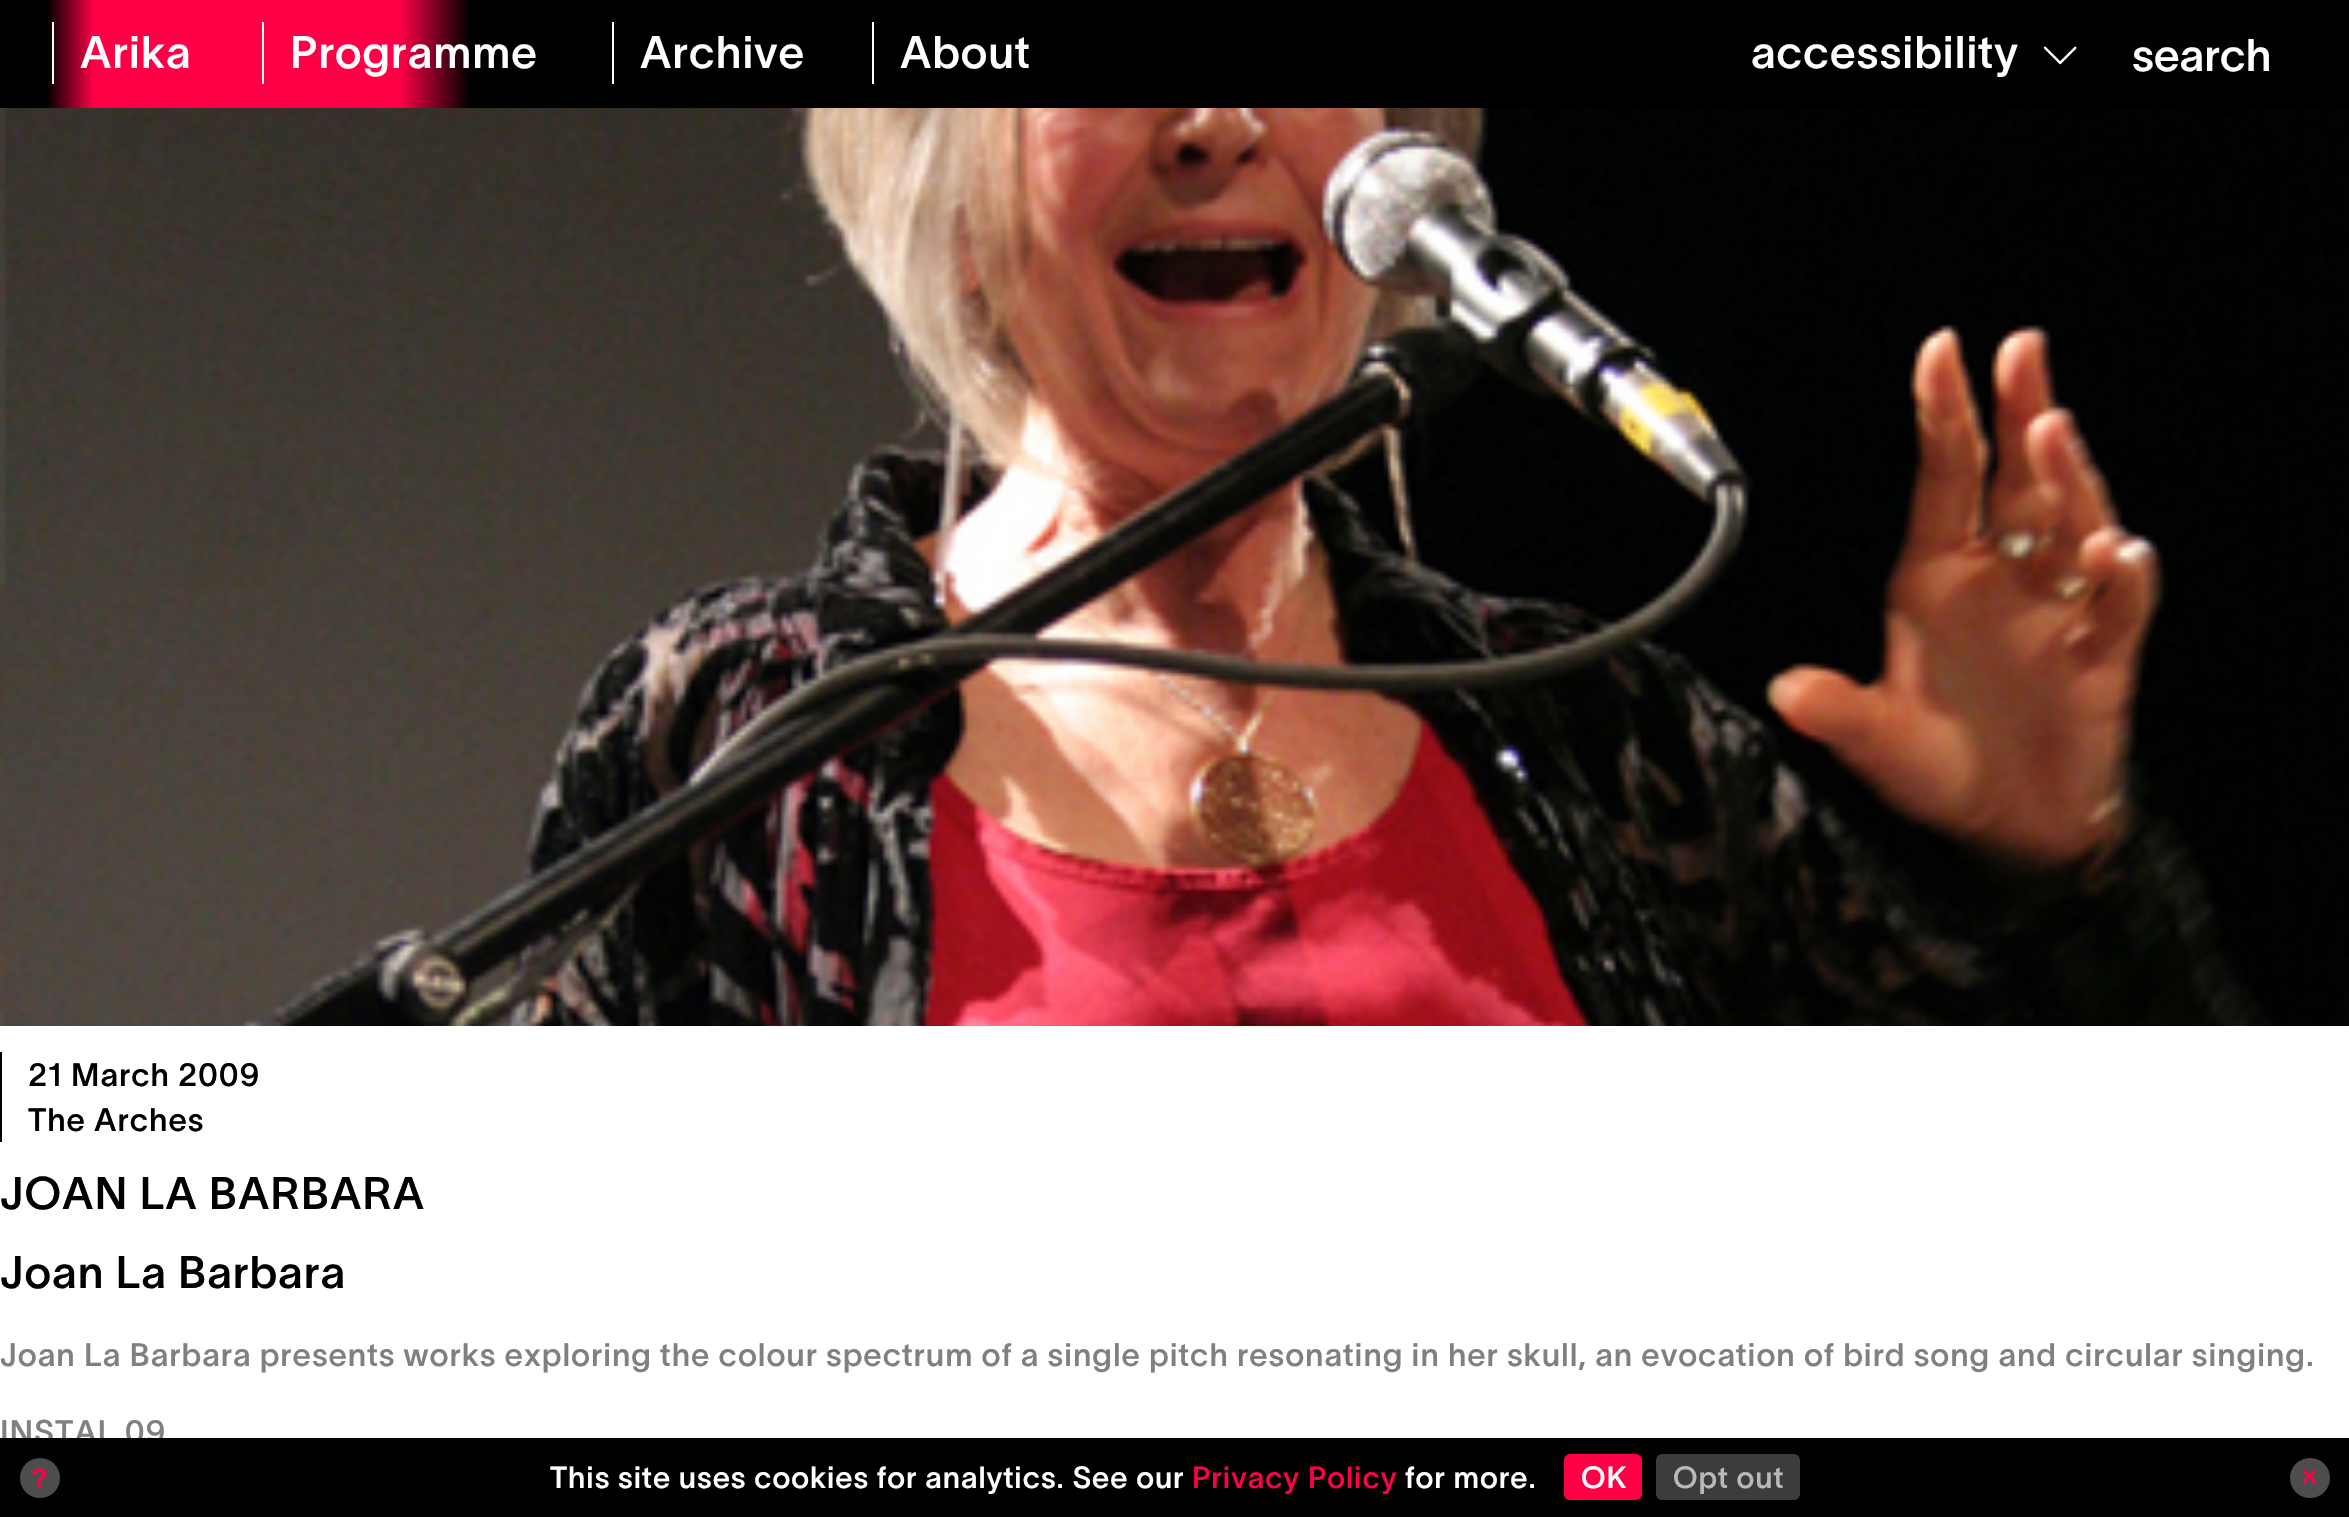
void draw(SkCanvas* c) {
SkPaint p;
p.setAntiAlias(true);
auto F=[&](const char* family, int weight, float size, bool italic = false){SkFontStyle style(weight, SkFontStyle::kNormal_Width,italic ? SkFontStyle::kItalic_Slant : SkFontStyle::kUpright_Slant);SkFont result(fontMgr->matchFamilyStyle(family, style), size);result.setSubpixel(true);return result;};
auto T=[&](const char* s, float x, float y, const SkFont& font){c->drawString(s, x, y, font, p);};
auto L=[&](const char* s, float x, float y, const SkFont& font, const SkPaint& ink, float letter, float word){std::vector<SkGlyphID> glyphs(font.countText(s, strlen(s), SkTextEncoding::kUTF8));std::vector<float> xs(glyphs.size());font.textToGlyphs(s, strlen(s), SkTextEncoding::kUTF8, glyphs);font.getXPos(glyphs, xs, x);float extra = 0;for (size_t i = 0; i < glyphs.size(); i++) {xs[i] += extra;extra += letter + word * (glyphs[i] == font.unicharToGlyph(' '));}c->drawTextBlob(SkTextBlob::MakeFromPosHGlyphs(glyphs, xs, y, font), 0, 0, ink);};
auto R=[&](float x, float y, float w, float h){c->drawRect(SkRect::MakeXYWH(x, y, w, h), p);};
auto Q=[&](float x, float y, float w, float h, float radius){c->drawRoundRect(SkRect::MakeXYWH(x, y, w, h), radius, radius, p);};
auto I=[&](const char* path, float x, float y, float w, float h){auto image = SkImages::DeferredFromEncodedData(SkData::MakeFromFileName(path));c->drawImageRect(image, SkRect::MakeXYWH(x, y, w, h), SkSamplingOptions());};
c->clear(0xffffffff);
{
const SkColor colors[] = {0xff000000,0xff000000,0xffff0046,0xffff0046,0xff000000};
const float stops[] = {0,.02,.04,.17,.2};
const SkPoint ends[] = {{0,54}, {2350,54}};
p.setShader(SkGradientShader::MakeLinear(ends, colors, stops, 5, SkTileMode::kClamp));
p.setAlpha(255);
}
R(0,0,2349,108);
p.setShader(nullptr);
p.setColor(0xffffffff);
R(52,22,2,62);
auto f1 = F("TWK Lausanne",500,44.75);
L("Arika",80,68,f1,p,.96,0);
R(262,22,2,62);
L("Programme",290,68,f1,p,.96,0);
R(612,22,2,62);
L("Archive",640,68,f1,p,.96,0);
R(872,22,2,62);
L("About",900,68,f1,p,.96,0);
L("accessibility",1751,68,f1,p,.96,0);
I("1.png",2043,46,34,19);
T("search",2132,71,f1);
I("2.png",0,108,2349,918);
p.setColor(0xff000000);
R(0,1052,2,90);
auto f2 = F("TWK Lausanne",500,32);
L("21 March 2009",28,1086,f2,p,.96,0);
L("The Arches",28,1131,f2,p,.96,0);
L("JOAN LA BARBARA",0,1209,f1,p,.96,0);
L("Joan La Barbara",0,1288,f1,p,.96,0);
p.setColor(0xff808080);
L("Joan La Barbara presents works exploring the colour spectrum of a single pitch resonating in her skull, an evocation of bird song and circular singing.",0,1366,f2,p,.96,0);
L("INSTAL 09",0,1443,f2,p,.96,0);
p.setColor(0xff000000);
R(0,1438,2349,79);
p.setColor(0xff4d4d4d);
c->drawCircle(40,1478,20,p);
auto f3 = F("Liberation Sans",700,28);
p.setColor(0xffff0046);
L("?",31,1488,f3,p,.96,0);
auto f4 = F("TWK Lausanne",500,30);
p.setColor(0xffffffff);
L("This site uses cookies for analytics. See our",550,1488,f4,p,.96,0);
p.setColor(0xffff0046);
L("Privacy Policy",1192,1488,f4,p,.96,0);
p.setColor(0xffffffff);
L("for more.",1405,1488,f4,p,.96,0);
p.setColor(0xffff0046);
Q(1564,1454,78,46,6);
p.setColor(0xffffffff);
L("OK",1581,1488,f4,p,.96,0);
p.setColor(0xff3c3c3c);
Q(1656,1454,144,46,6);
p.setColor(0xffb9b9b9);
L("Opt out",1673,1488,f4,p,.96,0);
p.setColor(0xff4d4d4d);
c->drawCircle(2310,1478,20,p);
p.setColor(0xffff0046);
L("×",2301,1486,f3,p,.96,0);
}
